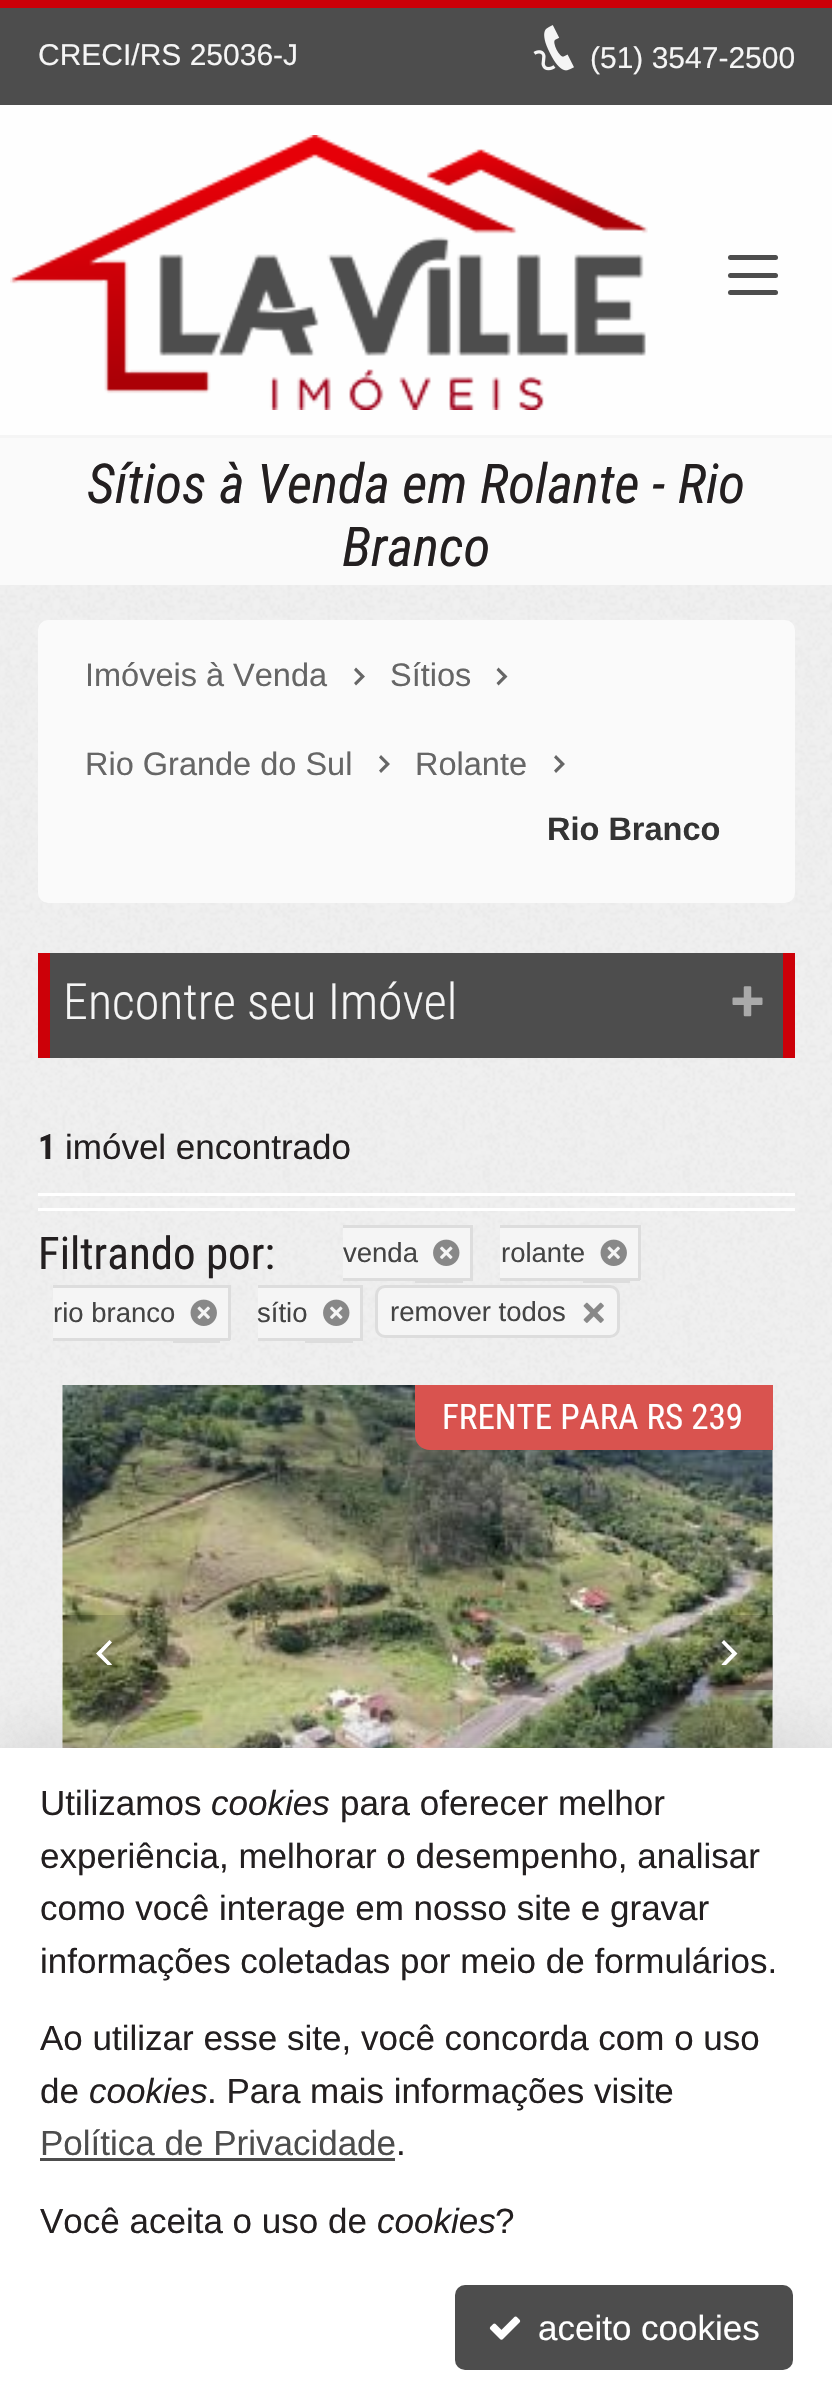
void draw(SkCanvas* c) {
SkPaint p;
p.setAntiAlias(true);
auto F=[&](const char* family, int weight, float size, bool italic = false){SkFontStyle style(weight, SkFontStyle::kNormal_Width,italic ? SkFontStyle::kItalic_Slant : SkFontStyle::kUpright_Slant);SkFont result(fontMgr->matchFamilyStyle(family, style), size);result.setSubpixel(true);return result;};
auto T=[&](const char* s, float x, float y, const SkFont& font){c->drawString(s, x, y, font, p);};
auto R=[&](float x, float y, float w, float h){c->drawRect(SkRect::MakeXYWH(x, y, w, h), p);};
auto Q=[&](float x, float y, float w, float h, float radius){c->drawRoundRect(SkRect::MakeXYWH(x, y, w, h), radius, radius, p);};
auto I=[&](const char* path, float x, float y, float w, float h){auto image = SkImages::DeferredFromEncodedData(SkData::MakeFromFileName(path));c->drawImageRect(image, SkRect::MakeXYWH(x, y, w, h), SkSamplingOptions());};
auto P=[&](const char* data, bool evenOdd = false){SkPath result = *SkParsePath::FromSVGString(data);if (evenOdd) result.setFillType(SkPathFillType::kEvenOdd);return result;};
c->clear(0xfff0f0f0);
I("1.png",0,585,832,1163);
p.setColor(0xfffefefe);
R(0,105,832,330);
p.setColor(0xffcc0008);
R(0,0,832,8);
p.setColor(0xfff5f5f5);
R(0,435,832,3);
p.setColor(0xff4d4d4d);
R(0,8,832,97);
auto f1 = F("Liberation Sans",400,30);
p.setColor(0xfff5f5f5);
T("CRECI/RS 25036-J",38,65,f1);
I("2.png",533,25,41,46);
T("(51) 3547-2500",590,68,f1);
I("3.png",10,135,638,275);
p.setColor(0xff4d4d4d);
Q(728,255,50,5,2.5);
Q(728,273,50,5,2.5);
Q(728,290,50,5,2.5);
p.setColor(0xfffafafa);
R(0,438,832,147);
auto f2 = F("Roboto Condensed",400,55,true);
p.setColor(0xff231f20);
T("Sítios à Venda em Rolante - Rio",87,503,f2);
T("Branco",342,566,f2);
p.setColor(0xfffafafa);
Q(38,620,757,283,10);
auto f3 = F("Liberation Sans",400,32.5);
p.setColor(0xff666666);
T("Imóveis à Venda",85,686,f3);
c->drawPath(P("M354 670l2-2.5l9 9l-9 9l-2-2.5l6.5-6.5z"),p);
T("Sítios",390,686,f3);
c->drawPath(P("M496.5 670l2-2.5l9 9l-9 9l-2-2.5l6.5-6.5z"),p);
T("Rio Grande do Sul",85,775,f3);
c->drawPath(P("M379 757.5l2-2.5l9 9l-9 9l-2-2.5l6.5-6.5z"),p);
T("Rolante",415,775,f3);
c->drawPath(P("M554 757.5l2-2.5l9 9l-9 9l-2-2.5l6.5-6.5z"),p);
auto f4 = F("Liberation Sans",700,32.5);
p.setColor(0xff333333);
T("Rio Branco",547,840,f4);
p.setColor(0xff4d4d4d);
R(50,953,733,105);
p.setColor(0xffcc0008);
R(783,953,12,105);
R(38,953,12,105);
auto f5 = F("Roboto Condensed",300,50);
p.setColor(0xfff5f5f5);
T("Encontre seu Imóvel",63,1019,f5);
I("4.png",732,986,31,31);
p.setColor(0xffffffff);
R(38,1208,757,3);
R(38,1193,757,3);
auto f6 = F("Roboto Condensed",700,35);
p.setColor(0xff231f20);
T("1",38,1159,f6);
auto f7 = F("Liberation Sans",400,35);
T("imóvel encontrado",65,1159,f7);
auto f8 = F("Roboto Condensed",400,45);
T("Filtrando por:",38,1269,f8);
p.setColor(0xffdddddd);
R(415,1281,48,2);
p.setColor(0xfff5f5f5);
R(343,1228,127,50);
p.setColor(0xffdddddd);
R(343,1225,130,3);
R(470,1225,3,55);
R(343,1278,130,3);
auto f9 = F("Liberation Sans",400,27.5);
p.setColor(0xff444444);
T("venda",343,1262,f9);
I("5.png",433,1239,27,27);
p.setColor(0xffdddddd);
R(583,1281,47,2);
p.setColor(0xfff5f5f5);
R(500,1228,138,50);
p.setColor(0xffdddddd);
R(500,1225,140,3);
R(638,1225,3,55);
R(500,1278,140,3);
p.setColor(0xff444444);
T("rolante",501,1262,f9);
I("6.png",600,1239,27,27);
p.setColor(0xffdddddd);
R(173,1341,47,2);
p.setColor(0xfff5f5f5);
R(53,1288,175,50);
p.setColor(0xffdddddd);
R(53,1285,177,3);
R(228,1285,3,55);
R(53,1338,177,3);
p.setColor(0xff444444);
T("rio branco",53,1322,f9);
I("6.png",190,1299,27,27);
p.setColor(0xffdddddd);
R(305,1341,48,2);
p.setColor(0xfff5f5f5);
R(258,1288,102,50);
p.setColor(0xffdddddd);
R(258,1285,105,3);
R(360,1285,3,55);
R(258,1338,105,3);
p.setColor(0xff444444);
T("sítio",257,1322,f9);
I("5.png",323,1299,27,27);
p.setColor(0xfff5f5f5);
c->drawRoundRect(SkRect::MakeXYWH(376.5,1286.5,242,50),8.5,8.5,p);
p.setStroke(true);
p.setStrokeWidth(3);
p.setColor(0xffdddddd);
c->drawRoundRect(SkRect::MakeXYWH(376.5,1286.5,242,50),8.5,8.5,p);
p.setStroke(false);
p.setColor(0xff444444);
T("remover todos",390,1321,f9);
I("7.png",583,1302,21,21);
p.setColor(0xffe5e5e5);
R(772,1450,1,298);
I("8.png",62,1385,711,363);
c->save();
c->clipRect(SkRect::MakeXYWH(88,1640,37,25));
p.setColor(0xffffffff);
c->drawPath(P("M96 1653.5l13.5 13.5l2.5-2.5l-10.5-11l10.5-11l-2.5-2.5z"),p);
c->restore();
{
const SkColor colors[] = {0x00000000,0x40000000};
const float stops[] = {0,1};
const SkPoint ends[] = {{665,1653}, {773,1653}};
p.setShader(SkGradientShader::MakeLinear(ends, colors, stops, 2, SkTileMode::kClamp));
p.setAlpha(255);
}
R(674,1615,99,75);
c->save();
c->clipRect(SkRect::MakeXYWH(708,1640,40,25));
p.setShader(nullptr);
p.setColor(0xffffffff);
c->drawPath(P("M737.5 1653.5l-13.5-13.5l-2.5 2.5l10.5 11l-10.5 11l2.5 2.5z"),p);
c->restore();
p.setColor(0xffd9534f);
c->drawPath(P("M415 1385h358v65h-343c-8.5 0-15-6.5-15-15z"),p);
auto f10 = F("Roboto Condensed",400,35);
p.setColor(0xffffffff);
T("FRENTE PARA RS 239",442,1429,f10);
p.setColor(0x709f9f9f);
p.setMaskFilter(SkMaskFilter::MakeBlur(kNormal_SkBlurStyle, 37.5));
c->drawRect(SkRect::MakeXYWH(0,1748,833,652),p);
p.setMaskFilter(nullptr);
p.setColor(0xffffffff);
R(0,1748,832,650);
p.setColor(0xff231f20);
T("Utilizamos",40,1815,f7);
auto f11 = F("Liberation Sans",400,35,true);
T("cookies",211,1815,f11);
T("para oferecer melhor",340,1815,f7);
T("experiência, melhorar o desempenho, analisar",40,1868,f7);
T("como você interage em nosso site e gravar",40,1920,f7);
T("informações coletadas por meio de formulários.",40,1973,f7);
T("Ao utilizar esse site, você concorda com o uso",40,2050,f7);
T("de",40,2103,f7);
T("cookies",89,2103,f11);
T(". Para mais informações visite",207,2103,f7);
p.setColor(0xff4d4d4d);
T("Política de Privacidade",40,2155,f7);
R(40,2158,355,3);
p.setColor(0xff231f20);
T(".",396,2155,f7);
T("Você aceita o uso de",40,2233,f7);
T("cookies",377,2233,f11);
T("?",495,2233,f7);
p.setColor(0xff4d4d4d);
Q(455,2285,338,85,10);
I("9.png",489,2316,32,24);
p.setColor(0xffffffff);
T("aceito cookies",538,2340,f7);
}
